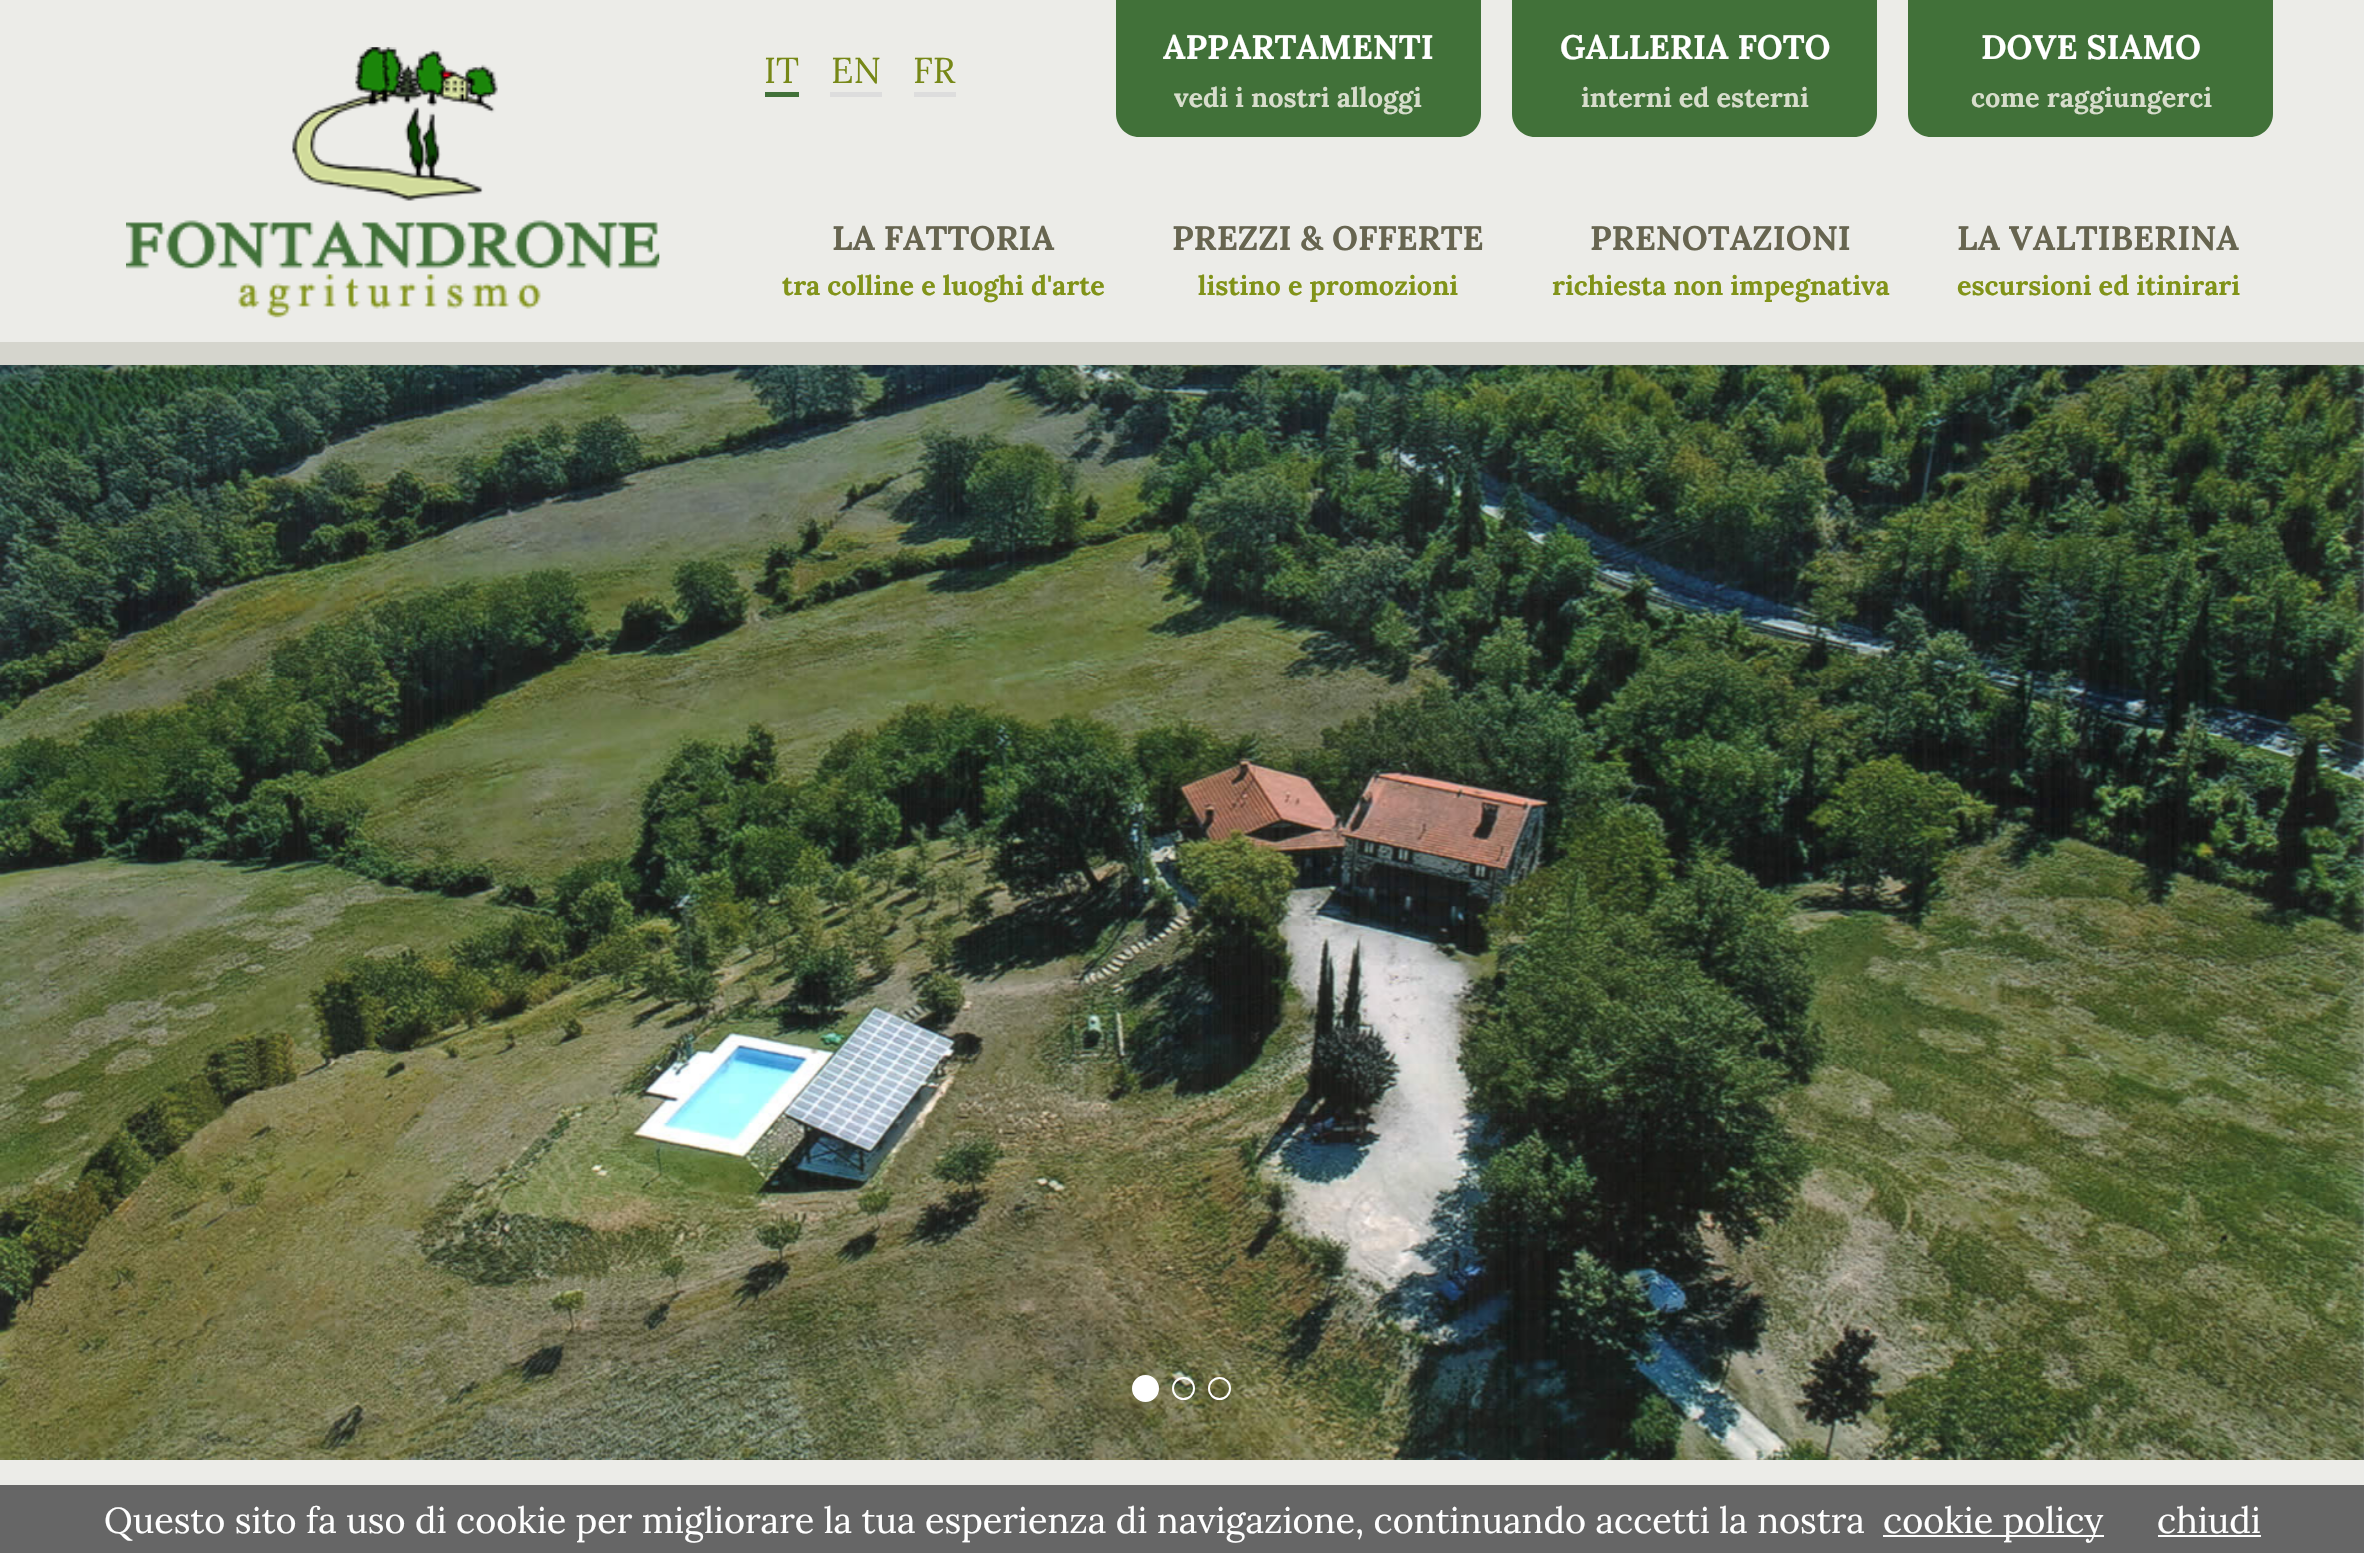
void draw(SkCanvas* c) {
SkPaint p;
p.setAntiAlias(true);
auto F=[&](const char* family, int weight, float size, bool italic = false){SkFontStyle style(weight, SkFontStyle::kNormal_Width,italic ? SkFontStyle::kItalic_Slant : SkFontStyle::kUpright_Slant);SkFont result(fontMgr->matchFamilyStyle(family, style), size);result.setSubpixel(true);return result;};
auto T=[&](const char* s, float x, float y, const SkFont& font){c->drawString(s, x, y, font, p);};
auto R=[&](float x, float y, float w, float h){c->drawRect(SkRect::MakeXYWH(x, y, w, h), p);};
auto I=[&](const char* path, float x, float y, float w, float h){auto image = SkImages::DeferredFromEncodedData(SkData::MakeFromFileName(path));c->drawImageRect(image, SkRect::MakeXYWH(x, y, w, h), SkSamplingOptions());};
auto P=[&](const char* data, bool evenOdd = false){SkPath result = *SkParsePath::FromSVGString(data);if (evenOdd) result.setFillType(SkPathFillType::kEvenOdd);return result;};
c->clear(0xffecece8);
p.setColor(0xffd5d5cd);
R(0,342,2364,23);
auto f1 = F("Lora",400,36);
p.setColor(0xff778817);
T("IT",764,83,f1);
p.setColor(0xff417139);
R(765,92,34,5);
p.setColor(0xff778817);
T("EN",831,83,f1);
p.setColor(0xffdddddd);
R(830,92,52,5);
p.setColor(0xff778817);
T("FR",913,83,f1);
p.setColor(0xffdddddd);
R(914,92,42,5);
p.setColor(0xff417139);
c->drawPath(P("M1116 0h365v114c0 12.5-10.5 23-23 23h-319c-12.5 0-23-10.5-23-23z"),p);
auto f2 = F("Lora",700,33.75);
p.setColor(0xffffffff);
T("APPARTAMENTI",1163,59,f2);
auto f3 = F("Lora",700,27);
p.setColor(0xffd7ddcc);
T("vedi i nostri alloggi",1174,107,f3);
p.setColor(0xff417139);
c->drawPath(P("M1512 0h365v114c0 12.5-10.5 23-23 23h-319c-12.5 0-23-10.5-23-23z"),p);
p.setColor(0xffffffff);
T("GALLERIA FOTO",1560,59,f2);
p.setColor(0xffd7ddcc);
T("interni ed esterni",1581,107,f3);
p.setColor(0xff417139);
c->drawPath(P("M1908 0h365v114c0 12.5-10.5 23-23 23h-319c-12.5 0-23-10.5-23-23z"),p);
p.setColor(0xffffffff);
T("DOVE SIAMO",1981,59,f2);
p.setColor(0xffd7ddcc);
T("come raggiungerci",1971,107,f3);
I("1.png",126,47,534,271);
p.setColor(0xff676550);
T("LA FATTORIA",832,250,f2);
p.setColor(0xff819319);
T("tra colline e luoghi d'arte",782,295,f3);
p.setColor(0xff676550);
T("PREZZI & OFFERTE",1172,250,f2);
p.setColor(0xff819319);
T("listino e promozioni",1198,295,f3);
p.setColor(0xff676550);
T("PRENOTAZIONI",1590,250,f2);
p.setColor(0xff819319);
T("richiesta non impegnativa",1552,295,f3);
p.setColor(0xff676550);
T("LA VALTIBERINA",1957,250,f2);
p.setColor(0xff819319);
T("escursioni ed itinirari",1957,295,f3);
I("2.png",0,365,2364,1095);
p.setColor(0xffffffff);
c->drawCircle(1145.5,1388.5,12.5,p);
p.setStroke(true);
p.setStrokeWidth(2);
c->drawCircle(1145.5,1388.5,12.5,p);
c->drawCircle(1183.5,1388.5,10.5,p);
c->drawCircle(1219.5,1388.5,10.5,p);
p.setStroke(false);
p.setColor(0xff666666);
R(0,1485,2364,68);
p.setColor(0xffffffff);
T("Questo sito fa uso di cookie per migliorare la tua esperienza di navigazione, continuando accetti la nostra",104,1533,f1);
R(1883,1535,221,2);
T("cookie policy",1883,1533,f1);
T("chiudi",2157,1533,f1);
R(2158,1535,103,2);
}
